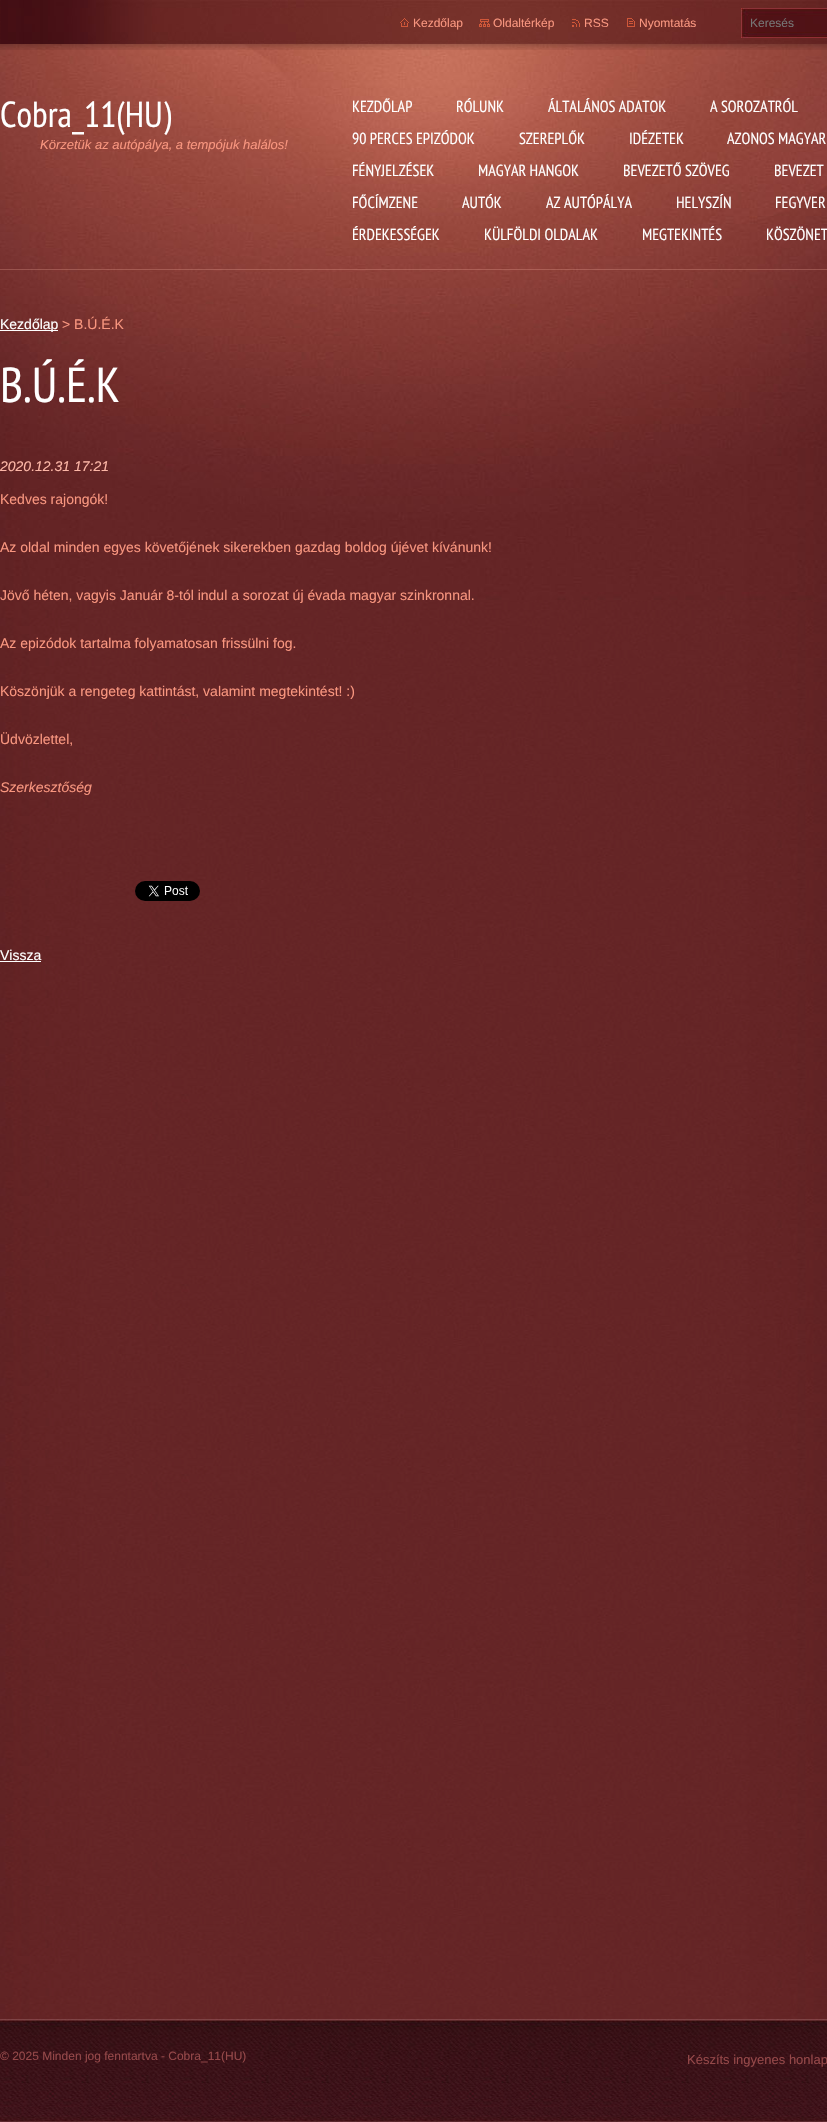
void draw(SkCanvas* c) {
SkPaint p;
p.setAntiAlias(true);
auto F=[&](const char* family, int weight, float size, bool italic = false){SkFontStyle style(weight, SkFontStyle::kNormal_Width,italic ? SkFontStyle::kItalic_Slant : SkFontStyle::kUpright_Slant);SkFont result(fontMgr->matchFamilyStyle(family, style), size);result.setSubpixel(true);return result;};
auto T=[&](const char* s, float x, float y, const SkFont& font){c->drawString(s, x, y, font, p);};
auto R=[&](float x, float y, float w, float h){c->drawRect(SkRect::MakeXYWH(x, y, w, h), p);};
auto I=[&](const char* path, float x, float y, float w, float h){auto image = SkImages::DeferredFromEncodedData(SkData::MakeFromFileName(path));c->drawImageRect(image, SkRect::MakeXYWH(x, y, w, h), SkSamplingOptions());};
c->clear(0xffffffff);
I("1.png",0,600,827,1419);
I("2.png",0,44,827,556);
p.setColor(0x42fbb6a6);
R(0,269,827,1);
I("3.png",0,0,827,50);
I("4.png",1,0,826,44);
I("5.png",400,18,9,9);
auto f1 = F("Liberation Sans",400,12);
p.setColor(0xfff9967f);
T("Kezdőlap",413,27,f1);
I("6.png",479,19,11,8);
T("Oldaltérkép",493,27,f1);
I("7.png",572,19,8,8);
T("RSS",584,27,f1);
I("8.png",627,18,8,9);
T("Nyomtatás",639,27,f1);
I("9.png",741,8,86,30);
p.setColor(0xff757575);
T("Keresés",750,27,f1);
auto f2 = F("PT Sans Narrow",400,36);
p.setColor(0xffffffff);
T("Cobra_11(HU)",0,127,f2);
auto f3 = F("Liberation Sans",400,13,true);
p.setColor(0xfff9967f);
T("Körzetük az autópálya, a tempójuk halálos!",40,149,f3);
auto f4 = F("PT Sans Narrow",400,16);
p.setColor(0xffffffff);
T("KEZDŐLAP",352,112,f4);
T("RÓLUNK",456,112,f4);
T("ÁLTALÁNOS ADATOK",548,112,f4);
T("A SOROZATRÓL",710,112,f4);
T("90 PERCES EPIZÓDOK",352,144,f4);
T("SZEREPLŐK",519,144,f4);
T("IDÉZETEK",629,144,f4);
T("AZONOS MAGYAR",727,144,f4);
T("FÉNYJELZÉSEK",352,176,f4);
T("MAGYAR HANGOK",478,176,f4);
T("BEVEZETŐ SZÖVEG",623,176,f4);
T("BEVEZET",774,176,f4);
T("FŐCÍMZENE",352,208,f4);
T("AUTÓK",462,208,f4);
T("AZ AUTÓPÁLYA",546,208,f4);
T("HELYSZÍN",676,208,f4);
T("FEGYVER",775,208,f4);
T("ÉRDEKESSÉGEK",352,240,f4);
T("KÜLFÖLDI OLDALAK",484,240,f4);
T("MEGTEKINTÉS",642,240,f4);
T("KÖSZÖNET",766,240,f4);
R(0,330,58,1);
auto f5 = F("Liberation Sans",400,14);
T("Kezdőlap",0,329,f5);
p.setColor(0xfff9967f);
T("> B.Ú.É.K",62,329,f5);
auto f6 = F("PT Sans Narrow",400,49);
p.setColor(0xffffffff);
T("B.Ú.É.K",0,402,f6);
auto f7 = F("Liberation Sans",400,14,true);
p.setColor(0xfffdb7a7);
T("2020.12.31 17:21",0,471,f7);
p.setColor(0xfff9967f);
T("Kedves rajongók!",0,504,f5);
T("Az oldal minden egyes követőjének sikerekben gazdag boldog újévet kívánunk!",0,552,f5);
T("Jövő héten, vagyis Január 8-tól indul a sorozat új évada magyar szinkronnal.",0,600,f5);
T("Az epizódok tartalma folyamatosan frissülni fog.",0,648,f5);
T("Köszönjük a rengeteg kattintást, valamint megtekintést! :)",0,696,f5);
T("Üdvözlettel,",0,744,f5);
T("Szerkesztőség",0,792,f7);
I("10.png",135,881,65,20);
p.setColor(0xffffffff);
T("Vissza",0,960,f5);
R(0,961,41,1);
I("11.png",0,2019,827,103);
p.setColor(0xff954849);
T("© 2025 Minden jog fenntartva - Cobra_11(HU)",0,2060,f1);
auto f8 = F("Liberation Sans",400,13);
T("Készíts ingyenes honlap",687,2064,f8);
}
